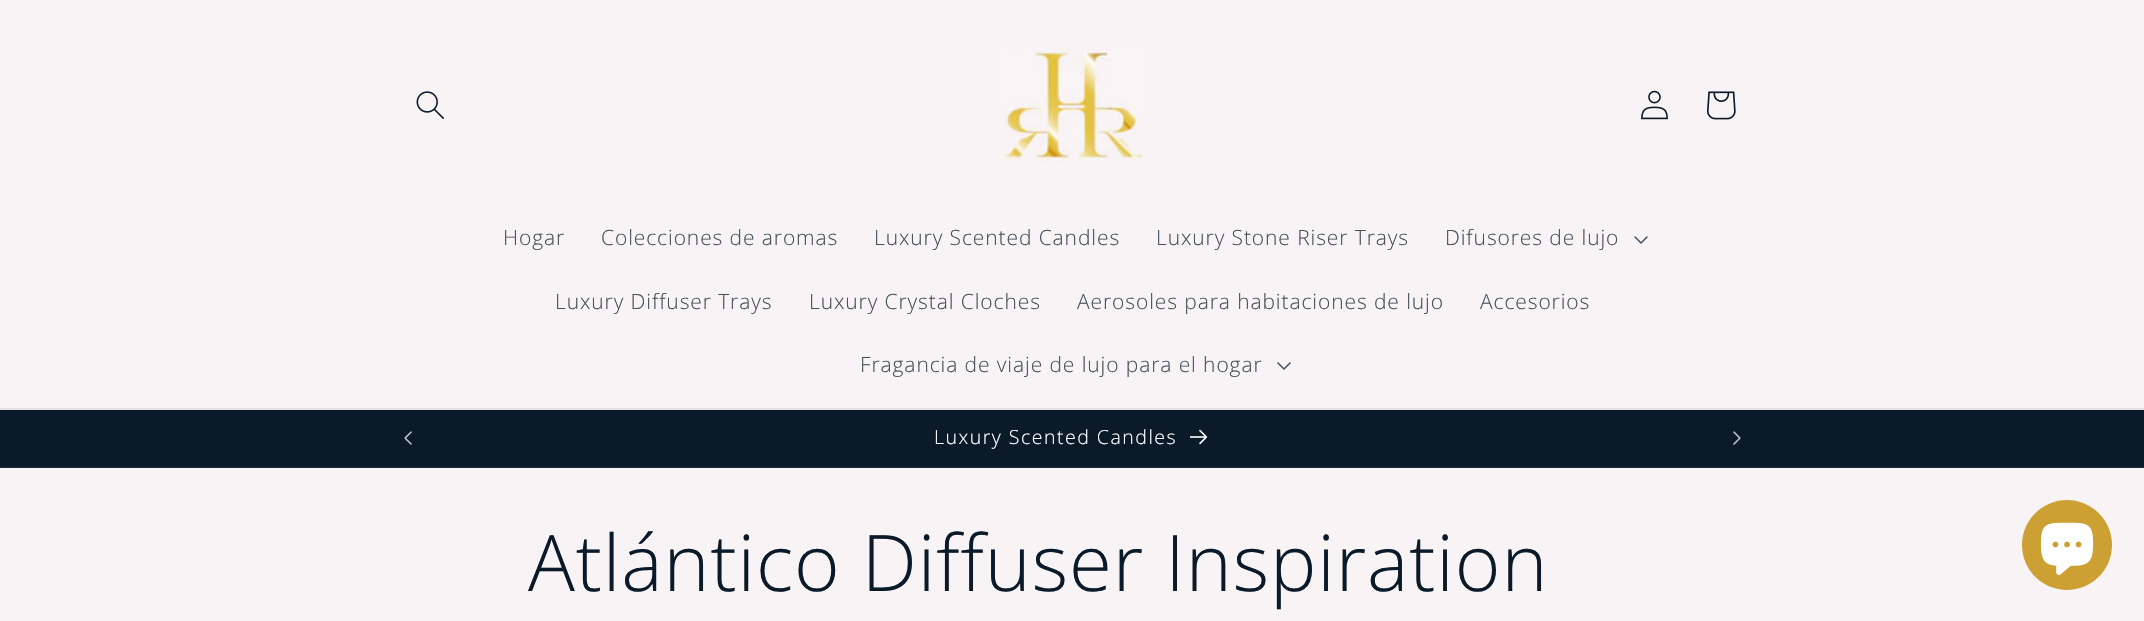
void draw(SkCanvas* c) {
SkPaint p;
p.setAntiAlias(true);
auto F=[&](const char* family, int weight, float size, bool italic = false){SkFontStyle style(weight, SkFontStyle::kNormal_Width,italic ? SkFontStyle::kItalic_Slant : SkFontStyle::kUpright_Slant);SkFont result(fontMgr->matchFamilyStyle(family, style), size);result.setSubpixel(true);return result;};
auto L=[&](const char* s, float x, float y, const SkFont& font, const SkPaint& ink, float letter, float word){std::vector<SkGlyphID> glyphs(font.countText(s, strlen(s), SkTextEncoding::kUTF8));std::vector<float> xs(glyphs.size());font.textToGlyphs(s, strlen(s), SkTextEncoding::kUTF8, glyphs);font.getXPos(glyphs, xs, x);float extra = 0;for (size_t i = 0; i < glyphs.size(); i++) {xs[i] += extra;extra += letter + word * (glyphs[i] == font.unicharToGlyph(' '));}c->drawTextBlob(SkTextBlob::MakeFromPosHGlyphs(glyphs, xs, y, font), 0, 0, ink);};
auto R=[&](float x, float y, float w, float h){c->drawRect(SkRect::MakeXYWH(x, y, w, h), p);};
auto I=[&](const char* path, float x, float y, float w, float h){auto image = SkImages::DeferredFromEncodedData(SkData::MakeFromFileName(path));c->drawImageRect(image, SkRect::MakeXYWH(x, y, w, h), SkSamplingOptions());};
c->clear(0xfff8f4f5);
p.setColor(0xffe5e3e5);
R(0,408,2144,2);
I("1.png",416,91,28,28);
I("2.png",1001,46,142,116);
I("3.png",1641,90,27,30);
I("4.png",1707,91,29,29);
auto f1 = F("Open Sans",300,21);
p.setColor(0xff46515c);
L("Hogar",503,245,f1,p,.9,0);
L("Colecciones de aromas",601,245,f1,p,.9,0);
L("Luxury Scented Candles",874,245,f1,p,.9,0);
L("Luxury Stone Riser Trays",1156,245,f1,p,.9,0);
L("Difusores de lujo",1445,245,f1,p,.9,0);
I("5.png",1634,236,14,8);
L("Luxury Diffuser Trays",555,309,f1,p,.9,0);
L("Luxury Crystal Cloches",809,309,f1,p,.9,0);
L("Aerosoles para habitaciones de lujo",1077,309,f1,p,.9,0);
L("Accesorios",1480,309,f1,p,.9,0);
L("Fragancia de viaje de lujo para el hogar",860,372,f1,p,.9,0);
I("5.png",1277,362,14,8);
p.setColor(0xff0a1a29);
R(0,410,2144,57);
p.setColor(0xff1e2c3a);
R(0,467,2144,1);
I("6.png",404,431,8,14);
auto f2 = F("Open Sans",300,19.5);
p.setColor(0xffffffff);
L("Luxury Scented Candles",934,444,f2,p,1.5,0);
I("7.png",1190,429,18,16);
I("8.png",1733,431,8,14);
auto f3 = F("Open Sans",300,78);
p.setColor(0xff0a1a29);
L("Atlántico Diffuser Inspiration",528,591,f3,p,.9,0);
p.setColor(0xffcda034);
c->drawCircle(2067,545,45,p);
I("9.png",2040,522,54,53);
}
